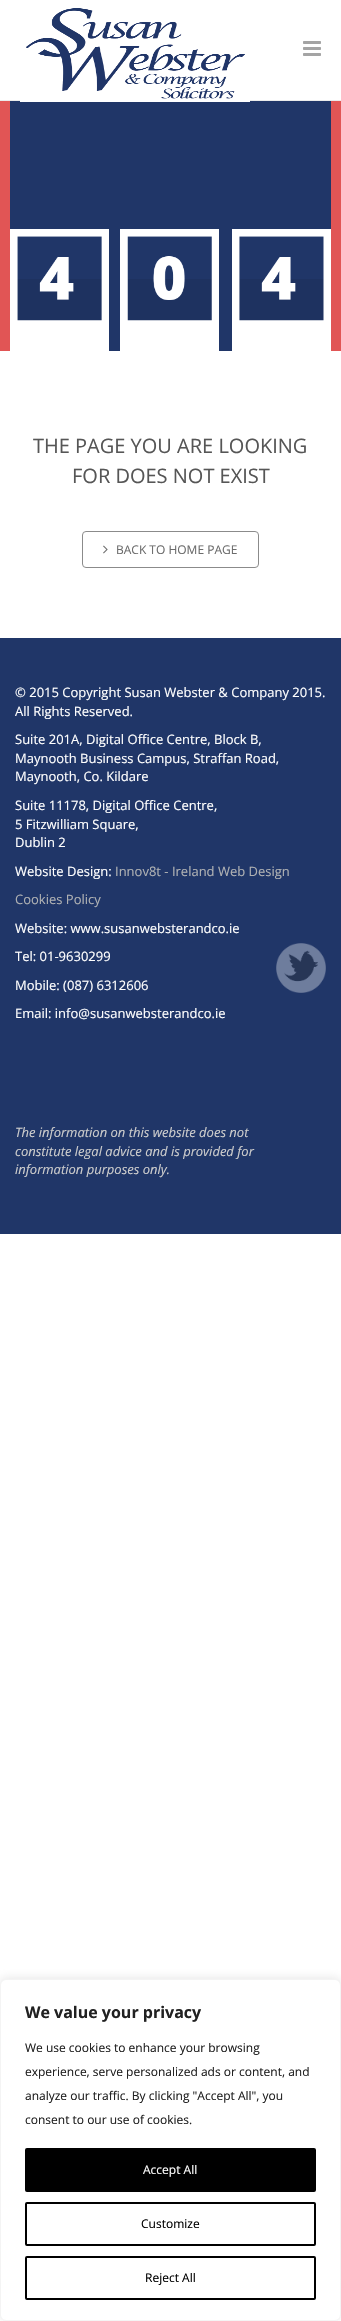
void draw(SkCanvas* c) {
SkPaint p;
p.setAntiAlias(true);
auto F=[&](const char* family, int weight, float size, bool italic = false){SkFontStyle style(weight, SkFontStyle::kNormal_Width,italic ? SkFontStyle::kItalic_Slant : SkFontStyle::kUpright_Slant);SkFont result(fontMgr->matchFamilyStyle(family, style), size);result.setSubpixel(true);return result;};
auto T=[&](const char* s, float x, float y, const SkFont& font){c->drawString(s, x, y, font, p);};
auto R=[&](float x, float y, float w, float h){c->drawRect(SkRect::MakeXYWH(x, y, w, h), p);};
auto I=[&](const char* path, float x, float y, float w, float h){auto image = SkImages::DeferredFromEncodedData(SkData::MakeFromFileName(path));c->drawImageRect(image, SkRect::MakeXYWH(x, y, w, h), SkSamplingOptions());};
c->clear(0xffffffff);
p.setColor(0xffebebeb);
R(0,100,341,1);
I("1.png",26,8,219,91);
p.setColor(0xff203668);
R(10,101,321,250);
p.setColor(0xffffffff);
R(20,100,230,2);
I("2.png",303,41,18,15);
I("3.png",10,229,321,122);
p.setColor(0xffe15555);
R(331,101,10,250);
R(0,101,10,250);
auto f1 = F("Open Sans",400,20);
p.setColor(0xff565656);
T("THE PAGE YOU ARE LOOKING",33,453,f1);
T("FOR DOES NOT EXIST",72,483,f1);
p.setStroke(true);
p.setStrokeWidth(1);
p.setColor(0xff8b8b8b);
c->drawRoundRect(SkRect::MakeXYWH(82.5,531.5,176,36),3.5,3.5,p);
I("4.png",103,545,5,9);
auto f2 = F("Open Sans",400,12);
p.setStroke(false);
p.setColor(0xff6b6b6b);
T("BACK TO HOME PAGE",116,554,f2);
p.setColor(0xff203668);
R(0,638,341,596);
auto f3 = F("Open Sans",400,13);
p.setColor(0xffffffff);
T("© 2015 Copyright Susan Webster & Company 2015.",15,697,f3);
T("All Rights Reserved.",15,716,f3);
T("Suite 201A, Digital Office Centre, Block B,",15,744,f3);
T("Maynooth Business Campus, Straffan Road,",15,763,f3);
T("Maynooth, Co. Kildare",15,781,f3);
T("Suite 11178, Digital Office Centre,",15,810,f3);
T("5 Fitzwilliam Square,",15,829,f3);
T("Dublin 2",15,847,f3);
T("Website Design:",15,876,f3);
p.setColor(0xffafb1b3);
T("Innov8t - Ireland Web Design",115,876,f3);
T("Cookies Policy",15,904,f3);
p.setColor(0xffffffff);
T("Website: www.susanwebsterandco.ie",15,933,f3);
T("Tel: 01-9630299",15,961,f3);
T("Mobile: (087) 6312606",15,990,f3);
T("Email: info@susanwebsterandco.ie",15,1018,f3);
I("5.png",276,943,50,50);
auto f4 = F("Open Sans",400,13,true);
p.setColor(0xffcccccc);
T("The information on this website does not",15,1137,f4);
T("constitute legal advice and is provided for",15,1156,f4);
T("information purposes only.",15,1174,f4);
p.setColor(0x4dacabab);
p.setMaskFilter(SkMaskFilter::MakeBlur(kNormal_SkBlurStyle, 5));
c->drawRoundRect(SkRect::MakeXYWH(0,1978,341,342),6,6,p);
p.setMaskFilter(nullptr);
p.setColor(0xffffffff);
c->drawRoundRect(SkRect::MakeXYWH(.5,1979.5,340,341),5.5,5.5,p);
p.setStroke(true);
p.setColor(0xfff4f4f4);
c->drawRoundRect(SkRect::MakeXYWH(.5,1979.5,340,341),5.5,5.5,p);
auto f5 = F("Open Sans",700,16);
p.setStroke(false);
p.setColor(0xff212121);
T("We value your privacy",25,2018,f5);
T("We use cookies to enhance your browsing",25,2052,f2);
T("experience, serve personalized ads or content, and",25,2076,f2);
T("analyze our traffic. By clicking \"Accept All\", you",25,2100,f2);
T("consent to our use of cookies.",25,2124,f2);
p.setColor(0xff000000);
c->drawRoundRect(SkRect::MakeXYWH(26,2149,289,42),1,1,p);
p.setStroke(true);
p.setStrokeWidth(2);
c->drawRoundRect(SkRect::MakeXYWH(26,2149,289,42),1,1,p);
p.setStroke(false);
p.setColor(0xffffffff);
T("Accept All",143,2174,f2);
p.setStroke(true);
p.setColor(0xff000000);
c->drawRoundRect(SkRect::MakeXYWH(26,2203,289,42),1,1,p);
p.setStroke(false);
T("Customize",141,2228,f2);
p.setStroke(true);
c->drawRoundRect(SkRect::MakeXYWH(26,2257,289,42),1,1,p);
p.setStroke(false);
T("Reject All",145,2282,f2);
}
